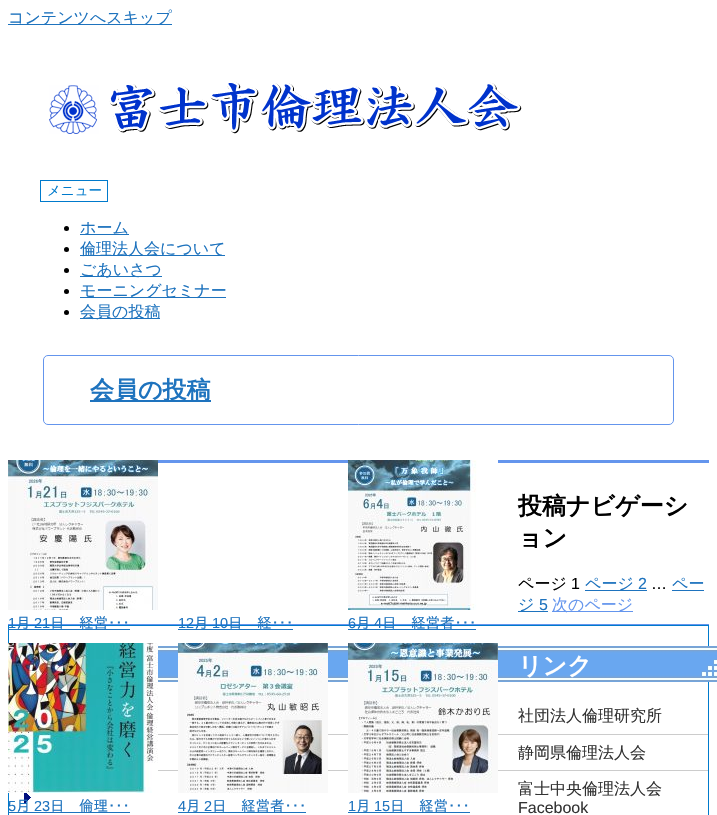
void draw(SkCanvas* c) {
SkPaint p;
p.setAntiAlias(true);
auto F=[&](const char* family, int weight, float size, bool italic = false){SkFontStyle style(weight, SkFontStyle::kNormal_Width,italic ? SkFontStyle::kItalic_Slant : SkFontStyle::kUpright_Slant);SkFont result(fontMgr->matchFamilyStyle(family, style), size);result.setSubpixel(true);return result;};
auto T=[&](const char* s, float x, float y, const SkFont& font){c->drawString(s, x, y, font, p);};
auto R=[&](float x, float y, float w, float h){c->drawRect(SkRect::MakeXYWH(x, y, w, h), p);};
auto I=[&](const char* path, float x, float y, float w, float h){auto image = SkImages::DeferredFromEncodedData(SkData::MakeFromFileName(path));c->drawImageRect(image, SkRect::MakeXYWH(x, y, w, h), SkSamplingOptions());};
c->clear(0xffffffff);
p.setColor(0xff1e73be);
R(8,24,164,1);
auto f1 = F("WenQuanYi Zen Hei",500,16);
T("コンテンツへスキップ",8,23,f1);
I("1.png",49,81,473,53);
p.setStroke(true);
p.setStrokeWidth(1);
p.setColor(0xff007acc);
c->drawRect(SkRect::MakeXYWH(40.5,180.5,67,21),p);
auto f2 = F("WenQuanYi Zen Hei",500,13.5);
p.setStroke(false);
T("メニュー",47,195,f2);
p.setColor(0xff000000);
c->drawCircle(66.5,228.5,2.5,p);
p.setColor(0xff1e73be);
R(80,234,49,1);
T("ホーム",80,233,f1);
p.setColor(0xff000000);
c->drawCircle(66.5,249.5,2.5,p);
p.setColor(0xff1e73be);
R(80,255,145,1);
T("倫理法人会について",80,254,f1);
p.setColor(0xff000000);
c->drawCircle(66.5,270.5,2.5,p);
p.setColor(0xff1e73be);
R(80,276,82,1);
T("ごあいさつ",80,275,f1);
p.setColor(0xff000000);
c->drawCircle(66.5,291.5,2.5,p);
p.setColor(0xff1e73be);
R(80,297,146,1);
T("モーニングセミナー",80,296,f1);
p.setColor(0xff000000);
c->drawCircle(66.5,312.5,2.5,p);
p.setColor(0xff1e73be);
R(80,318,80,1);
T("会員の投稿",80,317,f1);
p.setStroke(true);
p.setColor(0xff6495ed);
c->drawRoundRect(SkRect::MakeXYWH(43.5,355.5,630,69),4.5,4.5,p);
p.setStroke(false);
p.setColor(0xff1e73be);
R(90,400,121,2);
auto f3 = F("WenQuanYi Zen Hei",700,24);
T("会員の投稿",90,398,f3);
p.setColor(0xff6495ed);
R(158,460,551,3);
R(8,624,701,1);
p.setColor(0xff000000);
T("投稿ナビゲーシ",518,514,f3);
T("ョン",518,546,f3);
T("ページ",518,589,f1);
auto f4 = F("Liberation Sans",400,16);
T("1",571,589,f4);
p.setColor(0xff1e73be);
R(585,590,62,1);
T("ページ",585,589,f1);
T("2",638,589,f4);
p.setColor(0xff000000);
T("…",651,589,f4);
p.setColor(0xff1e73be);
T("ペー",672,589,f1);
R(672,590,32,1);
R(518,611,30,1);
T("ジ",518,610,f1);
T("5",539,610,f4);
p.setColor(0xff6495ed);
R(552,611,81,1);
T("次のページ",552,610,f1);
I("2.png",8,460,150,150);
p.setStroke(true);
p.setColor(0xff007acc);
c->drawRect(SkRect::MakeXYWH(8.5,625.5,700,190),p);
auto f5 = F("Liberation Sans",400,14.5);
p.setStroke(false);
p.setColor(0xff1e73be);
T("1",8,628,f5);
R(8,629,122,1);
auto f6 = F("IPAPGothic",400,14.5);
T("月",16,628,f6);
T("21",34,628,f5);
T("日　経営･･･",50,628,f6);
T("12",178,628,f5);
R(178,629,115,1);
T("月",194,628,f6);
T("10",212,628,f5);
T("日　経･･･",228,628,f6);
I("3.png",348,460,150,150);
T("6",348,628,f5);
R(348,629,128,1);
T("月",356,628,f6);
T("4",374,628,f5);
T("日　経営者･･･",382,628,f6);
I("4.png",8,643,150,150);
T("5",8,811,f5);
R(8,812,122,1);
I("9.png",24,793,7,10);
T("月",16,811,f6);
T("23",34,811,f5);
T("日　倫理･･･",50,811,f6);
I("8.png",158,646,523,36);
p.setColor(0xffcccccc);
R(158,734,550,1);
R(158,770,550,1);
I("5.png",178,643,150,150);
p.setColor(0xff1e73be);
T("4",178,811,f5);
R(178,812,128,1);
T("月",186,811,f6);
T("2",204,811,f5);
T("日　経営者･･･",212,811,f6);
I("6.png",348,643,150,150);
T("1",348,811,f5);
R(348,812,122,1);
T("月",356,811,f6);
T("15",374,811,f5);
T("日　経営･･･",390,811,f6);
I("7.png",681,646,36,36);
p.setColor(0xffffffff);
T("リンク",518,674,f3);
p.setColor(0xff333333);
T("社団法人倫理研究所",518,721,f1);
T("静岡県倫理法人会",518,758,f1);
T("富士中央倫理法人会",518,794,f1);
T("Facebook",518,813,f4);
}
